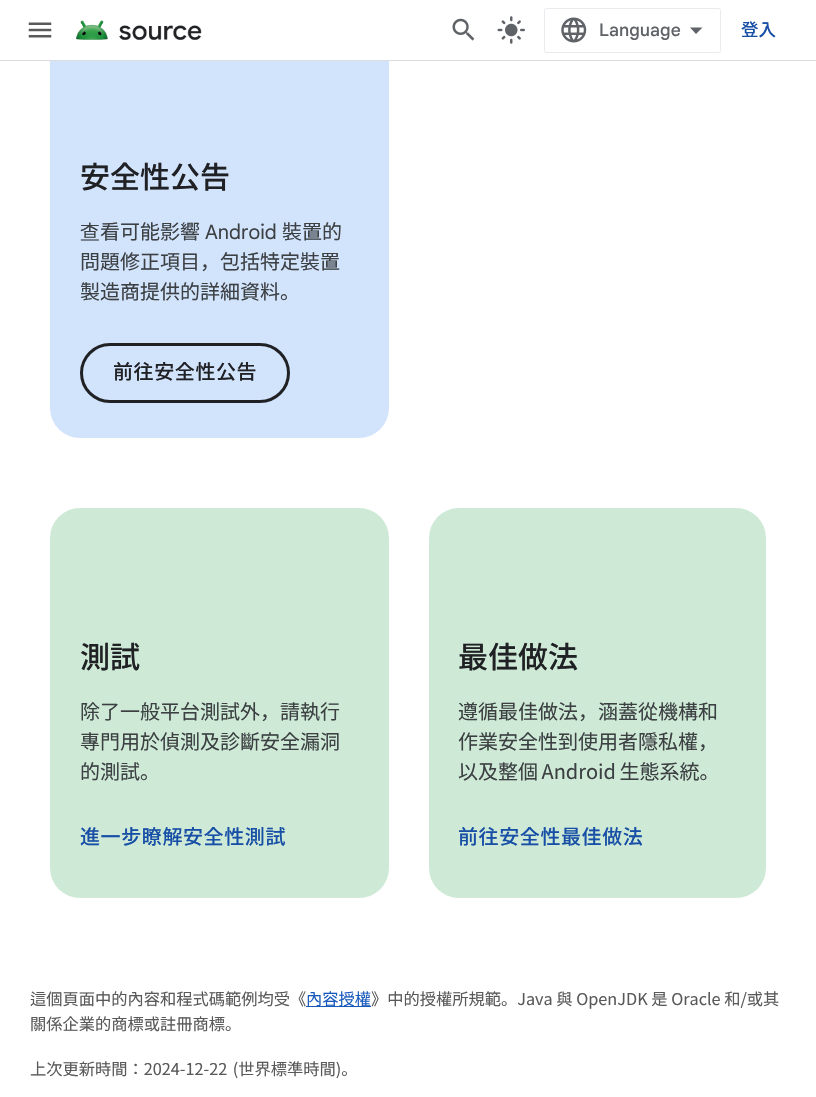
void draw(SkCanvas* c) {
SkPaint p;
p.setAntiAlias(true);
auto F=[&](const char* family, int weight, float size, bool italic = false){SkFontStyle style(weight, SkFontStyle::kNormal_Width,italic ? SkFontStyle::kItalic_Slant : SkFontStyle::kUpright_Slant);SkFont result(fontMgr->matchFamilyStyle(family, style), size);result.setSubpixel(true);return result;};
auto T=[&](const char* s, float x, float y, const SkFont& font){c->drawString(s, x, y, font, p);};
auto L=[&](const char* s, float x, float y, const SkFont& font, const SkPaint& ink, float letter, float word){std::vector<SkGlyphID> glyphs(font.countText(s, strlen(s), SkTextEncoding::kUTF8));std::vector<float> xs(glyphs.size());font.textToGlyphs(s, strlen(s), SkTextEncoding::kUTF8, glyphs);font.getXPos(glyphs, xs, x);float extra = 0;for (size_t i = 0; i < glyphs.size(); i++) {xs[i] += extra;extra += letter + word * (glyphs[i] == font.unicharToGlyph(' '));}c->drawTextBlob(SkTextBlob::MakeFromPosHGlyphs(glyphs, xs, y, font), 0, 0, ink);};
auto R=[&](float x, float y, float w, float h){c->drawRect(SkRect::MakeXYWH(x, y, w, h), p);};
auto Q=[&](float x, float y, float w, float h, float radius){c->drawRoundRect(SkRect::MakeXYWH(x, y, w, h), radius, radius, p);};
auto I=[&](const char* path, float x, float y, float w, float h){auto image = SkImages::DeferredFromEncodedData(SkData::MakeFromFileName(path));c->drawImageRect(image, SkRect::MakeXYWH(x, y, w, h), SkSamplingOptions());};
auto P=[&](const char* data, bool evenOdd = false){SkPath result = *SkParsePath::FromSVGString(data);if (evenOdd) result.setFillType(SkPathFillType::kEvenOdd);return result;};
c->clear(0xffffffff);
p.setColor(0xffd2e3fc);
Q(50,-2,339,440,30);
p.setColor(0xffffffff);
R(50,0,339,60);
p.setColor(0xffdadce0);
R(0,60,816,1);
I("1.png",28,22,24,16);
I("2.png",75,20,127,20);
I("3.png",452,18,23,23);
I("4.png",497,16,28,28);
p.setStroke(true);
p.setStrokeWidth(1);
p.setColor(0xffe8eaed);
c->drawRoundRect(SkRect::MakeXYWH(544.5,8.5,176,44),2,2,p);
I("5.png",561,17,26,26);
auto f1 = F("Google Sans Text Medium",500,17.5);
p.setStroke(false);
p.setColor(0xff5f6368);
T("Language",599,36,f1);
c->drawPath(P("M696 34l-6-6.5h12.5z"),p);
auto f2 = F("Noto Sans JP",500,17.5);
p.setColor(0xff174ea6);
T("登入",741,36,f2);
auto f3 = F("Noto Sans JP",500,30);
p.setColor(0xff202124);
T("安全性公告",80,188,f3);
auto f4 = F("WenQuanYi Zen Hei",500,20);
p.setColor(0xff3c4043);
T("查",80,239,f4);
auto f5 = F("Noto Sans JP",400,20);
T("看可能影響",100,239,f5);
auto f6 = F("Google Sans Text",400,20);
T("Android",205,239,f6);
T("裝置的",282,239,f5);
T("問題修正項目，包括特定裝置",80,269,f5);
T("製造商提供的詳細資料。",80,299,f5);
p.setStroke(true);
p.setStrokeWidth(3);
p.setColor(0xff202124);
c->drawRoundRect(SkRect::MakeXYWH(81.5,344.5,207,57),28.5,28.5,p);
auto f7 = F("Noto Sans JP",500,20);
p.setStroke(false);
L("前往安全性公告",113,379,f7,p,.6,0);
p.setColor(0xffceead6);
Q(50,508,339,390,30);
p.setColor(0xff202124);
T("測試",80,668,f3);
p.setColor(0xff3c4043);
T("除了一般平台測試外，請執行",80,719,f5);
T("專門用於偵測及診斷安全漏洞",80,749,f5);
T("的測試。",80,779,f5);
p.setColor(0xff174ea6);
L("進一步瞭解安全性測試",80,844,f7,p,.6,0);
p.setColor(0xffceead6);
Q(429,508,337,390,30);
p.setColor(0xff202124);
T("最佳做法",458,668,f3);
p.setColor(0xff3c4043);
T("遵循最佳做法，涵蓋從機構和",458,719,f5);
T("作業安全性到使用者隱私權，",458,749,f5);
L("以及整個 Android 生態系統。",458,779,f5,p,0,-1);
p.setColor(0xff174ea6);
L("前往安全性最佳做法",458,844,f7,p,.6,0);
auto f8 = F("Noto Sans JP",400,16.25);
p.setColor(0xff595959);
T("這個頁面中的內容和程式碼範例均受《",30,1005,f8);
p.setColor(0xff185abc);
R(306,1006,65,1);
T("內容授權",306,1005,f8);
p.setColor(0xff595959);
T("》中的授權所規範。Java 與 OpenJDK 是 Oracle 和/或其",371,1005,f8);
T("關係企業的商標或註冊商標。",30,1030,f8);
L("上次更新時間：2024-12-22 (世界標準時間)。",30,1075,f8,p,0,2);
}
